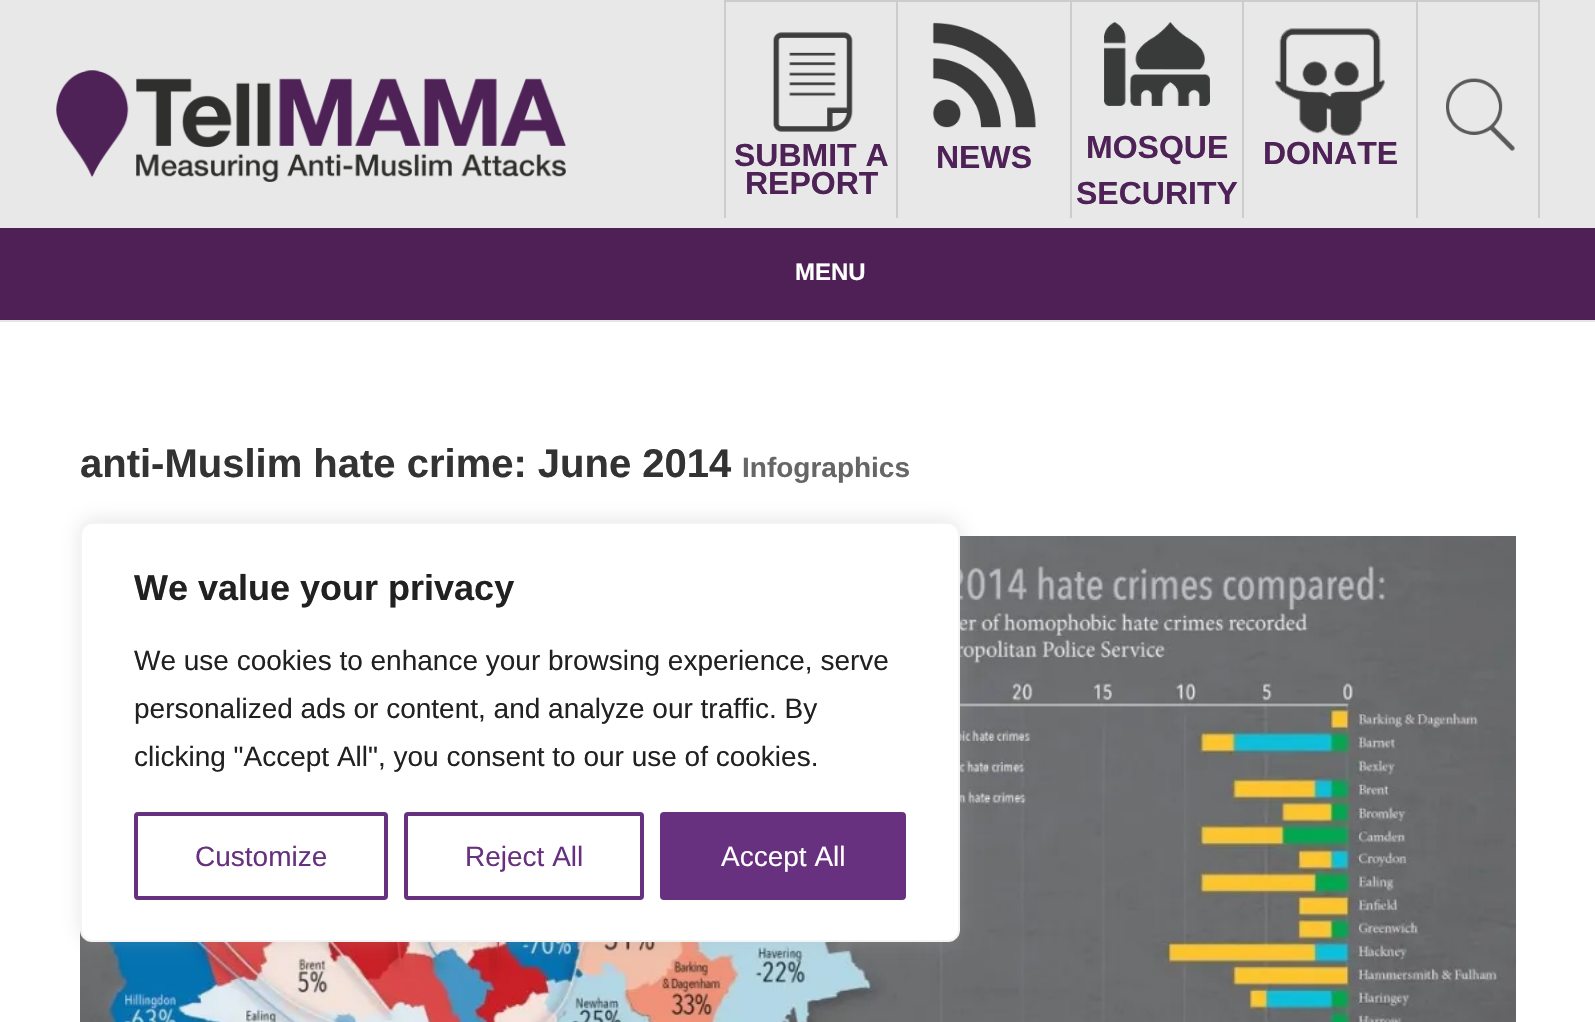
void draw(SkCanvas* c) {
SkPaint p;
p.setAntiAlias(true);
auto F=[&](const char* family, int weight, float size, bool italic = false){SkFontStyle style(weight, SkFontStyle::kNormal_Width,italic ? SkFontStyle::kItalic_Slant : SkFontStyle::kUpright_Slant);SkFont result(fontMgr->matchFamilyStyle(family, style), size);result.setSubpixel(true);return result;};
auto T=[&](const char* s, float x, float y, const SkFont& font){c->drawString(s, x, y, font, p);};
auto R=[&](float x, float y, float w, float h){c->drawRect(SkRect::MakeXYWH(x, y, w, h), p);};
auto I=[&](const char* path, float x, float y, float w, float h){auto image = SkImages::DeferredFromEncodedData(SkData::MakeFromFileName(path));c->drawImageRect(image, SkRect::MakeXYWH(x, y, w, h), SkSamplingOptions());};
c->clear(0xffffffff);
p.setColor(0xffe6e6e6);
R(0,320,1595,2);
p.setColor(0xffe8e8e8);
R(0,0,1595,228);
I("1.png",56,70,510,112);
p.setColor(0xffcccccc);
R(1416,0,124,2);
R(1416,0,2,218);
R(1242,0,176,2);
R(1242,0,2,218);
R(1070,0,174,2);
R(1070,0,2,218);
R(896,0,176,2);
R(896,0,2,218);
R(724,0,174,2);
R(724,0,2,218);
I("2.png",773,32,80,100);
auto f1 = F("Liberation Sans",700,32);
p.setColor(0xff4e2257);
T("SUBMIT A",734,166,f1);
T("REPORT",745,194,f1);
I("3.png",932,22,104,106);
T("NEWS",936,168,f1);
I("4.png",1104,22,106,84);
T("MOSQUE",1086,158,f1);
T("SECURITY",1076,204,f1);
I("5.png",1275,28,110,108);
T("DONATE",1263,164,f1);
p.setColor(0xffcccccc);
R(1538,0,2,218);
I("6.png",1446,78,69,73);
p.setColor(0xff4f2056);
R(0,228,1595,92);
auto f2 = F("Liberation Sans",700,24);
p.setColor(0xffffffff);
T("MENU",795,280,f2);
auto f3 = F("Liberation Sans",700,40);
p.setColor(0xff333333);
T("anti-Muslim hate crime: June 2014",80,477,f3);
auto f4 = F("Liberation Sans",700,28);
p.setColor(0xff666666);
T("Infographics",742,477,f4);
I("7.png",80,536,1436,486);
p.setColor(0x4dacabab);
p.setMaskFilter(SkMaskFilter::MakeBlur(kNormal_SkBlurStyle, 10));
c->drawRoundRect(SkRect::MakeXYWH(80,520,880,420),12,12,p);
p.setMaskFilter(nullptr);
p.setColor(0xffffffff);
c->drawRoundRect(SkRect::MakeXYWH(81,523,878,418),11,11,p);
p.setStroke(true);
p.setStrokeWidth(2);
p.setColor(0xfff4f4f4);
c->drawRoundRect(SkRect::MakeXYWH(81,523,878,418),11,11,p);
auto f5 = F("Liberation Sans",700,36);
p.setStroke(false);
p.setColor(0xff212121);
T("We value your privacy",134,600,f5);
auto f6 = F("Liberation Sans",400,28);
T("We use cookies to enhance your browsing experience, serve",134,670,f6);
T("personalized ads or content, and analyze our traffic. By",134,718,f6);
T("clicking \"Accept All\", you consent to our use of cookies.",134,766,f6);
p.setStroke(true);
p.setStrokeWidth(4);
p.setColor(0xff673180);
c->drawRoundRect(SkRect::MakeXYWH(136,814,250,84),2,2,p);
p.setStroke(false);
T("Customize",195,866,f6);
p.setStroke(true);
c->drawRoundRect(SkRect::MakeXYWH(406,814,236,84),2,2,p);
p.setStroke(false);
T("Reject All",465,866,f6);
c->drawRoundRect(SkRect::MakeXYWH(662,814,242,84),2,2,p);
p.setStroke(true);
c->drawRoundRect(SkRect::MakeXYWH(662,814,242,84),2,2,p);
p.setStroke(false);
p.setColor(0xffffffff);
T("Accept All",721,866,f6);
}
